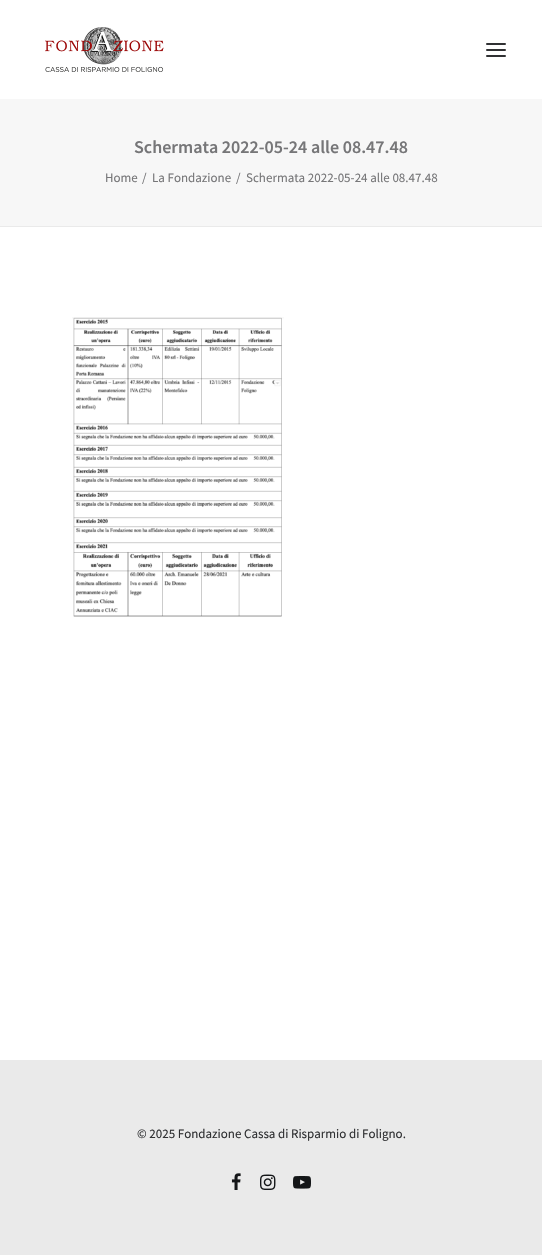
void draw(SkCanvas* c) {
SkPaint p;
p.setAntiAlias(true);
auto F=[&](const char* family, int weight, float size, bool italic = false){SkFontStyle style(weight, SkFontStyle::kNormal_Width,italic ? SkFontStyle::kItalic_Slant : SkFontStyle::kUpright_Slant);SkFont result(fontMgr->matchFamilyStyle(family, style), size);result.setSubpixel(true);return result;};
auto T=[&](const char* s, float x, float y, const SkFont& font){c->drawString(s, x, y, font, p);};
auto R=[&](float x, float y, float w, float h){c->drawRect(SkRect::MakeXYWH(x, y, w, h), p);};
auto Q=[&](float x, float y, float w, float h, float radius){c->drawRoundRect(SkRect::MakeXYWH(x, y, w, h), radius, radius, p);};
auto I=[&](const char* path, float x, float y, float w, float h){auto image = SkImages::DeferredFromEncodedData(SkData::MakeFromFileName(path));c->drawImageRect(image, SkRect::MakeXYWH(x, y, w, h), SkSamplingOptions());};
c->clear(0xfff7f7f7);
p.setColor(0xffffffff);
R(0,0,542,99);
I("1.png",45,27,119,45);
p.setColor(0xff303133);
Q(486,49,20,2,1);
Q(486,43,20,2,1);
Q(486,55,20,2,1);
p.setColor(0xffeaeaea);
R(0,226,542,1);
auto f1 = F("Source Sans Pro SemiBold",600,18);
p.setColor(0xff767678);
T("Schermata 2022-05-24 alle 08.47.48",134,153,f1);
auto f2 = F("Source Sans Pro",400,13);
T("Home",105,182,f2);
T("/",142,182,f2);
T("La Fondazione",152,182,f2);
T("/",236,182,f2);
T("Schermata 2022-05-24 alle 08.47.48",246,182,f2);
p.setColor(0xffffffff);
R(0,227,542,833);
I("2.png",72,317,212,300);
p.setColor(0xffeaeaea);
R(0,1060,542,195);
p.setColor(0xff303133);
T("© 2025 Fondazione Cassa di Risparmio di Foligno.",137,1138,f2);
I("3.png",231,1173,10,17);
I("4.png",260,1174,16,16);
I("5.png",293,1176,18,13);
}
